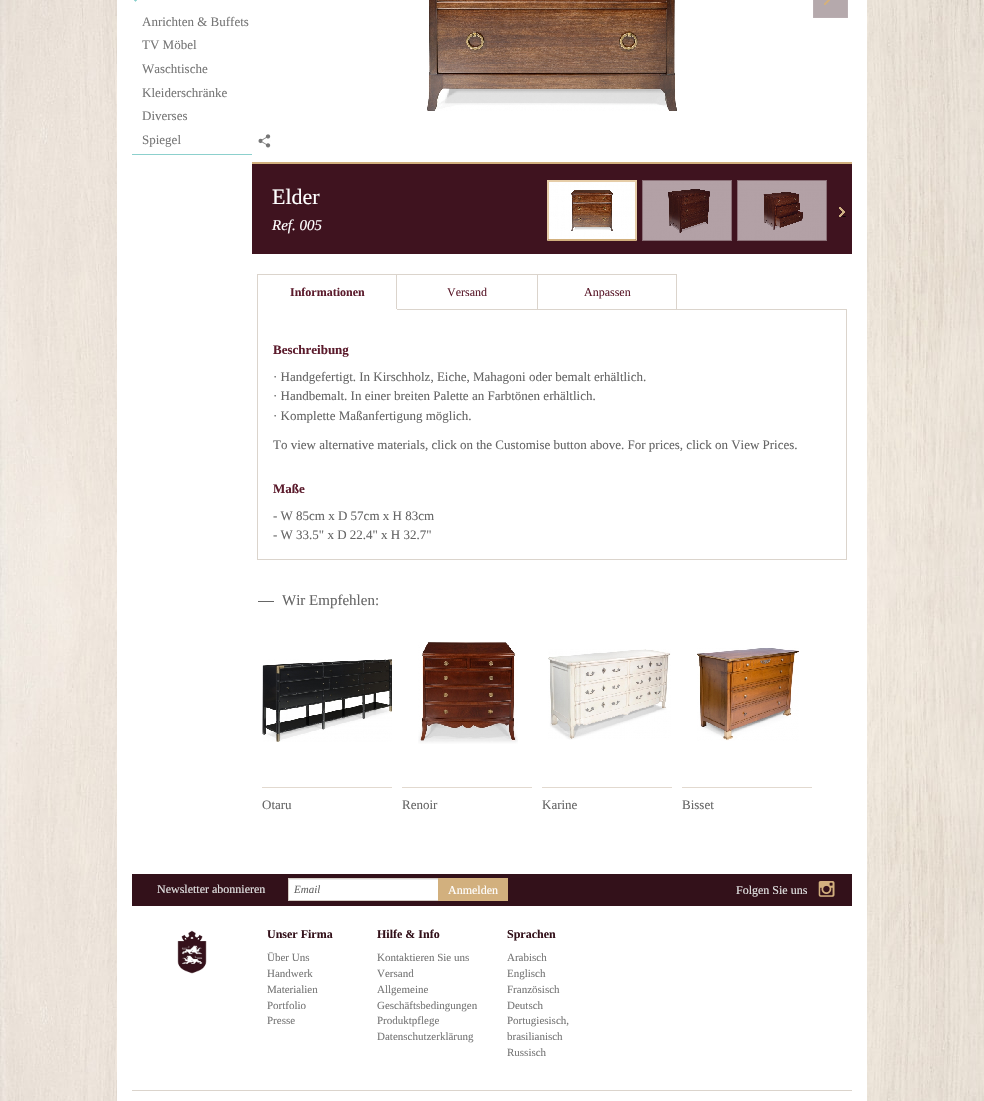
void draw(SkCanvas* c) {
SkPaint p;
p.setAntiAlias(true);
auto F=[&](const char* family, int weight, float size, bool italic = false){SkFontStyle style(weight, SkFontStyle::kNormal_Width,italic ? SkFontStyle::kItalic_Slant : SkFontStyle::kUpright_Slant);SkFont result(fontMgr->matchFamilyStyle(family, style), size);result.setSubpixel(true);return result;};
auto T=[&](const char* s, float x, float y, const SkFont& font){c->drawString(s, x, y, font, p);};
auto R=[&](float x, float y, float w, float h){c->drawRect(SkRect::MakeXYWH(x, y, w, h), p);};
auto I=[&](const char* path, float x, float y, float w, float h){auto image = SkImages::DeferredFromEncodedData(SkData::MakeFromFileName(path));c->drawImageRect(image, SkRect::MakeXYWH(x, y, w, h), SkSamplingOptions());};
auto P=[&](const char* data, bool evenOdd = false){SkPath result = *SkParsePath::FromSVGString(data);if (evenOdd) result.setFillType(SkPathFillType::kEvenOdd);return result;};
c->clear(0xffffffff);
I("1.png",0,0,984,1101);
p.setColor(0xffffffff);
R(117,0,750,1101);
I("2.png",134,0,3,2);
auto f1 = F("Liberation Serif",400,13);
p.setColor(0xff777777);
T("Anrichten & Buffets",142,26,f1);
T("TV Möbel",142,49,f1);
T("Waschtische",142,73,f1);
T("Kleiderschränke",142,97,f1);
T("Diverses",142,120,f1);
p.setColor(0xff8cd0cd);
R(132,154,120,1);
p.setColor(0xff777777);
T("Spiegel",142,144,f1);
I("3.png",427,0,250,111);
I("4.png",813,0,35,18);
I("5.png",258,134,13,14);
p.setColor(0xff3f131f);
R(252,164,600,90);
p.setColor(0xffd2b07e);
R(252,162,600,2);
auto f2 = F("Liberation Serif",400,22);
p.setColor(0xffffffff);
T("Elder",272,204,f2);
auto f3 = F("Liberation Serif",400,15,true);
T("Ref. 005",272,230,f3);
p.setColor(0xffe6cda8);
R(547,180,90,2);
c->drawPath(P("M637 180v61l-2-2v-57z"),p);
p.setColor(0xffd2b07e);
c->drawPath(P("M637 241h-90l2-2h86z"),p);
p.setColor(0xffe6cda8);
c->drawPath(P("M547 241v-61l2 2v57z"),p);
I("6.png",549,182,86,57);
p.setStroke(true);
p.setStrokeWidth(1);
p.setColor(0xff8b7178);
c->drawRect(SkRect::MakeXYWH(642.5,180.5,89,60),p);
I("7.png",643,181,88,59);
c->drawRect(SkRect::MakeXYWH(737.5,180.5,89,60),p);
I("8.png",738,181,88,59);
I("9.png",839,207,6,10);
I("10.png",842,216,4,1);
p.setStroke(false);
p.setColor(0xffdbd4cc);
R(257,274,420,1);
p.setStroke(true);
c->drawRect(SkRect::MakeXYWH(257.5,309.5,589,250),p);
p.setStroke(false);
R(396,274,1,36);
p.setColor(0xffffffff);
R(257,309,140,1);
p.setColor(0xffdbd4cc);
R(257,274,1,36);
auto f4 = F("Liberation Serif",700,12);
p.setColor(0xff5b1b2c);
T("Informationen",290,296,f4);
auto f5 = F("Liberation Serif",400,12);
T("Versand",447,296,f5);
p.setColor(0xffdbd4cc);
R(676,274,1,35);
R(537,274,1,35);
p.setColor(0xff5b1b2c);
T("Anpassen",584,296,f5);
auto f6 = F("Liberation Serif",700,13);
T("Beschreibung",273,354,f6);
p.setColor(0xff666666);
T("· Handgefertigt. In Kirschholz, Eiche, Mahagoni oder bemalt erhältlich.",273,381,f1);
T("· Handbemalt. In einer breiten Palette an Farbtönen erhältlich.",273,400,f1);
T("· Komplette Maßanfertigung möglich.",273,420,f1);
T("To view alternative materials, click on the Customise button above. For prices, click on View Prices.",273,449,f1);
p.setColor(0xff5b1b2c);
T("Maße",273,493,f6);
p.setColor(0xff666666);
T("- W 85cm x D 57cm x H 83cm",273,520,f1);
T("- W 33.5\" x D 22.4\" x H 32.7\"",273,539,f1);
R(258,601,16,1);
auto f7 = F("Liberation Serif",400,15);
T("Wir Empfehlen:",282,605,f7);
I("11.png",262,659,130,83);
p.setColor(0xffe2d9cf);
R(262,787,130,1);
p.setColor(0xff666666);
T("Otaru",262,809,f1);
I("12.png",418,642,100,102);
p.setColor(0xffe2d9cf);
R(402,787,130,1);
p.setColor(0xff666666);
T("Renoir",402,809,f1);
I("13.png",548,649,123,91);
p.setColor(0xffe2d9cf);
R(542,787,130,1);
p.setColor(0xff666666);
T("Karine",542,809,f1);
I("14.png",697,648,102,93);
p.setColor(0xffe2d9cf);
R(682,787,130,1);
p.setColor(0xff666666);
T("Bisset",682,809,f1);
p.setColor(0xff33111a);
R(132,874,720,32);
p.setColor(0xffe2e2e2);
T("Newsletter abonnieren",157,893,f5);
p.setColor(0xffffffff);
R(289,880,149,20);
p.setColor(0xffececec);
R(289,879,149,1);
p.setColor(0xffd4ccc4);
R(288,878,150,1);
R(288,900,150,1);
R(288,878,1,23);
auto f8 = F("Liberation Serif",400,11,true);
p.setColor(0xff666666);
T("Email",294,893,f8);
p.setColor(0xffd2b07e);
R(438,878,70,23);
p.setColor(0xffffffff);
T("Anmelden",448,894,f5);
p.setColor(0xffe2e2e2);
T("Folgen Sie uns",736,894,f5);
I("15.png",818,881,17,16);
I("16.png",177,930,30,44);
p.setColor(0xff33111a);
T("Unser Firma",267,938,f4);
auto f9 = F("Liberation Serif",400,11);
p.setColor(0xff777777);
T("Über Uns",267,961,f9);
T("Handwerk",267,977,f9);
T("Materialien",267,993,f9);
T("Portfolio",267,1009,f9);
T("Presse",267,1024,f9);
p.setColor(0xff33111a);
T("Hilfe & Info",377,938,f4);
p.setColor(0xff777777);
T("Kontaktieren Sie uns",377,961,f9);
T("Versand",377,977,f9);
T("Allgemeine",377,993,f9);
T("Geschäftsbedingungen",377,1009,f9);
T("Produktpflege",377,1024,f9);
T("Datenschutzerklärung",377,1040,f9);
p.setColor(0xff33111a);
T("Sprachen",507,938,f4);
p.setColor(0xff777777);
T("Arabisch",507,961,f9);
T("Englisch",507,977,f9);
T("Französisch",507,993,f9);
T("Deutsch",507,1009,f9);
T("Portugiesisch,",507,1024,f9);
T("brasilianisch",507,1040,f9);
T("Russisch",507,1056,f9);
p.setColor(0xffdbd4cc);
R(132,1090,720,1);
}
